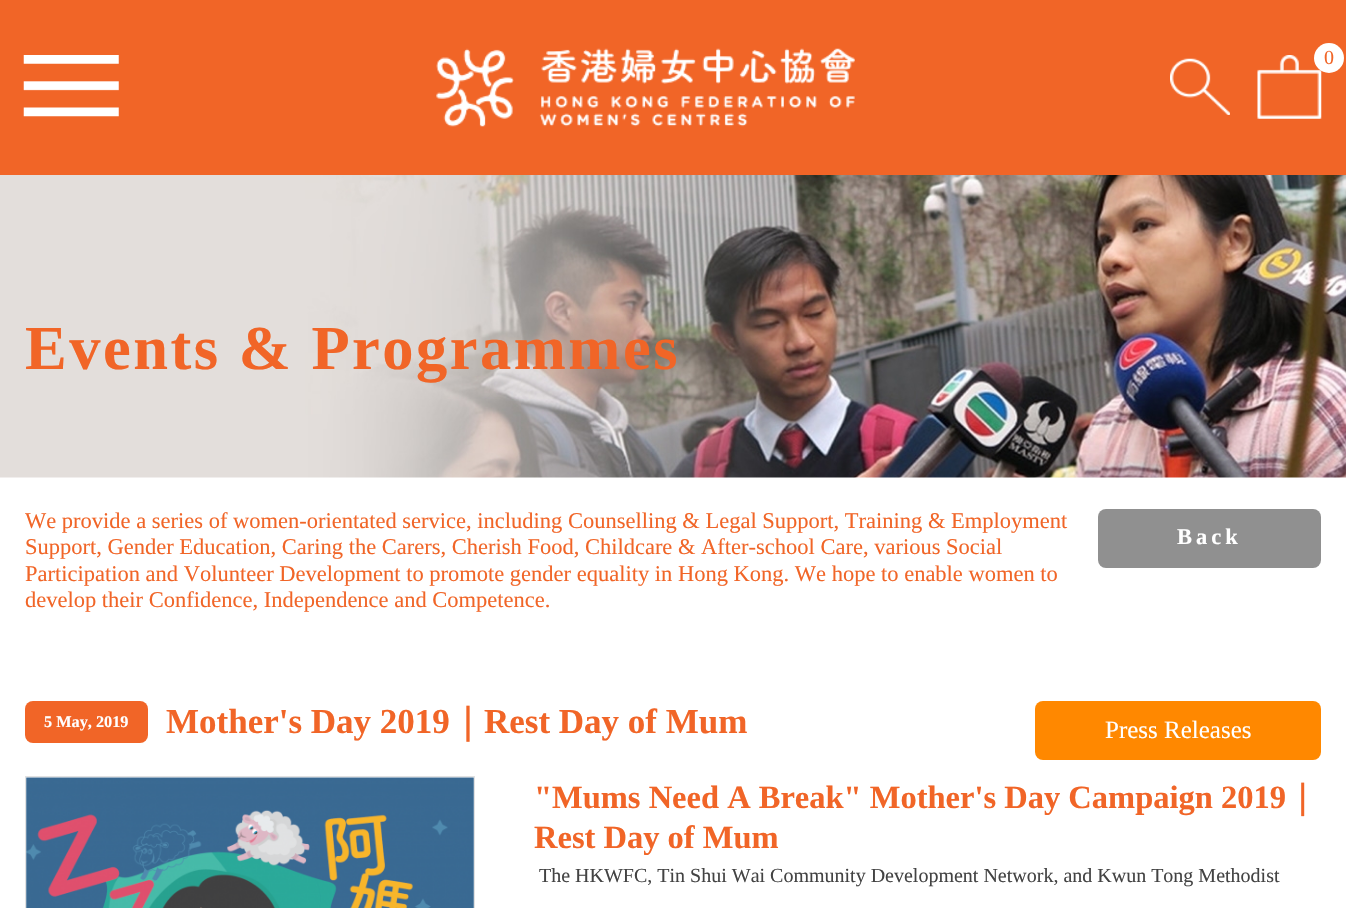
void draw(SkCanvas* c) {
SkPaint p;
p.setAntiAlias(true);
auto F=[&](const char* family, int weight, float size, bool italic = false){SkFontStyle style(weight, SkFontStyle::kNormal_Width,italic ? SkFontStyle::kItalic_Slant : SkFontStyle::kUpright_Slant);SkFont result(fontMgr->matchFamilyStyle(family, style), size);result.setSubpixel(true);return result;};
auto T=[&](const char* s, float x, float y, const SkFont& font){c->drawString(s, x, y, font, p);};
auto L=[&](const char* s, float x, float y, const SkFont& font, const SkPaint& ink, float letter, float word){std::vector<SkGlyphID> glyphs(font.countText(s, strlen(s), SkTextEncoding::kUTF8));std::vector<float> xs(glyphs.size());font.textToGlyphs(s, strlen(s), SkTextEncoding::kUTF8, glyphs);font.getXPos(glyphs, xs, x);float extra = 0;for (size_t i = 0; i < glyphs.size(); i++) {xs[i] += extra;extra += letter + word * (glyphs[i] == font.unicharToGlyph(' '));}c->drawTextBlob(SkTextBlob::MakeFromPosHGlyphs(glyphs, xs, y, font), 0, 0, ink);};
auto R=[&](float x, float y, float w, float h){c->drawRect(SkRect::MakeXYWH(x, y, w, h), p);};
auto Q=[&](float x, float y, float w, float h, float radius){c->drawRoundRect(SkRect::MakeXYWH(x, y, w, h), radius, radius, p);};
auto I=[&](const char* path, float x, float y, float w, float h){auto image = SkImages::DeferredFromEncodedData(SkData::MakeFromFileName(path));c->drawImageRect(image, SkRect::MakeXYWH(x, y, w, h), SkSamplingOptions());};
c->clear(0xfff16527);
I("1.png",23,55,96,62);
I("2.png",436,48,419,79);
I("3.png",1170,58,60,57);
I("4.png",1257,55,65,64);
p.setColor(0xffffffff);
c->drawCircle(1329,58,15,p);
auto f1 = F("Liberation Serif",400,20);
p.setColor(0xfff16527);
T("0",1324,64,f1);
p.setColor(0xffffffff);
R(0,477,1346,431);
I("5.png",0,175,1346,303);
auto f2 = F("Liberation Serif",700,62.5);
p.setColor(0xfff16527);
L("Events & Programmes",25,369,f2,p,2.5,0);
auto f3 = F("Liberation Serif",400,22.5);
T("We provide a series of women-orientated service, including Counselling & Legal Support, Training & Employment",25,528,f3);
T("Support, Gender Education, Caring the Carers, Cherish Food, Childcare & After-school Care, various Social",25,554,f3);
T("Participation and Volunteer Development to promote gender equality in Hong Kong. We hope to enable women to",25,581,f3);
T("develop their Confidence, Independence and Competence.",25,607,f3);
p.setColor(0xff909090);
Q(1098,509,223,59,8);
auto f4 = F("Liberation Serif",700,22.5);
p.setColor(0xffffffff);
L("Back",1177,544,f4,p,4,0);
p.setColor(0xfff16527);
Q(25,701,123,42,8);
auto f5 = F("Liberation Serif",700,16.25);
p.setColor(0xffffffff);
T("5 May, 2019",44,727,f5);
auto f6 = F("Liberation Serif",700,35);
p.setColor(0xfff16527);
T("Mother's Day 2019",166,733,f6);
auto f7 = F("WenQuanYi Zen Hei",700,35);
T("｜",450,733,f7);
T("Rest Day of Mum",484,733,f6);
p.setColor(0xffff8800);
Q(1035,701,286,59,8);
auto f8 = F("Liberation Serif",400,25);
p.setColor(0xffffffff);
T("Press Releases",1105,738,f8);
p.setStroke(true);
p.setStrokeWidth(1);
p.setColor(0xffe1e1e1);
c->drawRect(SkRect::MakeXYWH(25.5,776.5,449,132),p);
I("6.png",26,777,448,131);
auto f9 = F("Liberation Serif",700,32.5);
p.setStroke(false);
p.setColor(0xfff16527);
T("\"Mums Need A Break\" Mother's Day Campaign 2019",534,808,f9);
auto f10 = F("WenQuanYi Zen Hei",700,32.5);
T("｜",1286,808,f10);
T("Rest Day of Mum",534,848,f9);
p.setColor(0xff434343);
T("The HKWFC, Tin Shui Wai Community Development Network, and Kwun Tong Methodist",539,882,f1);
}
